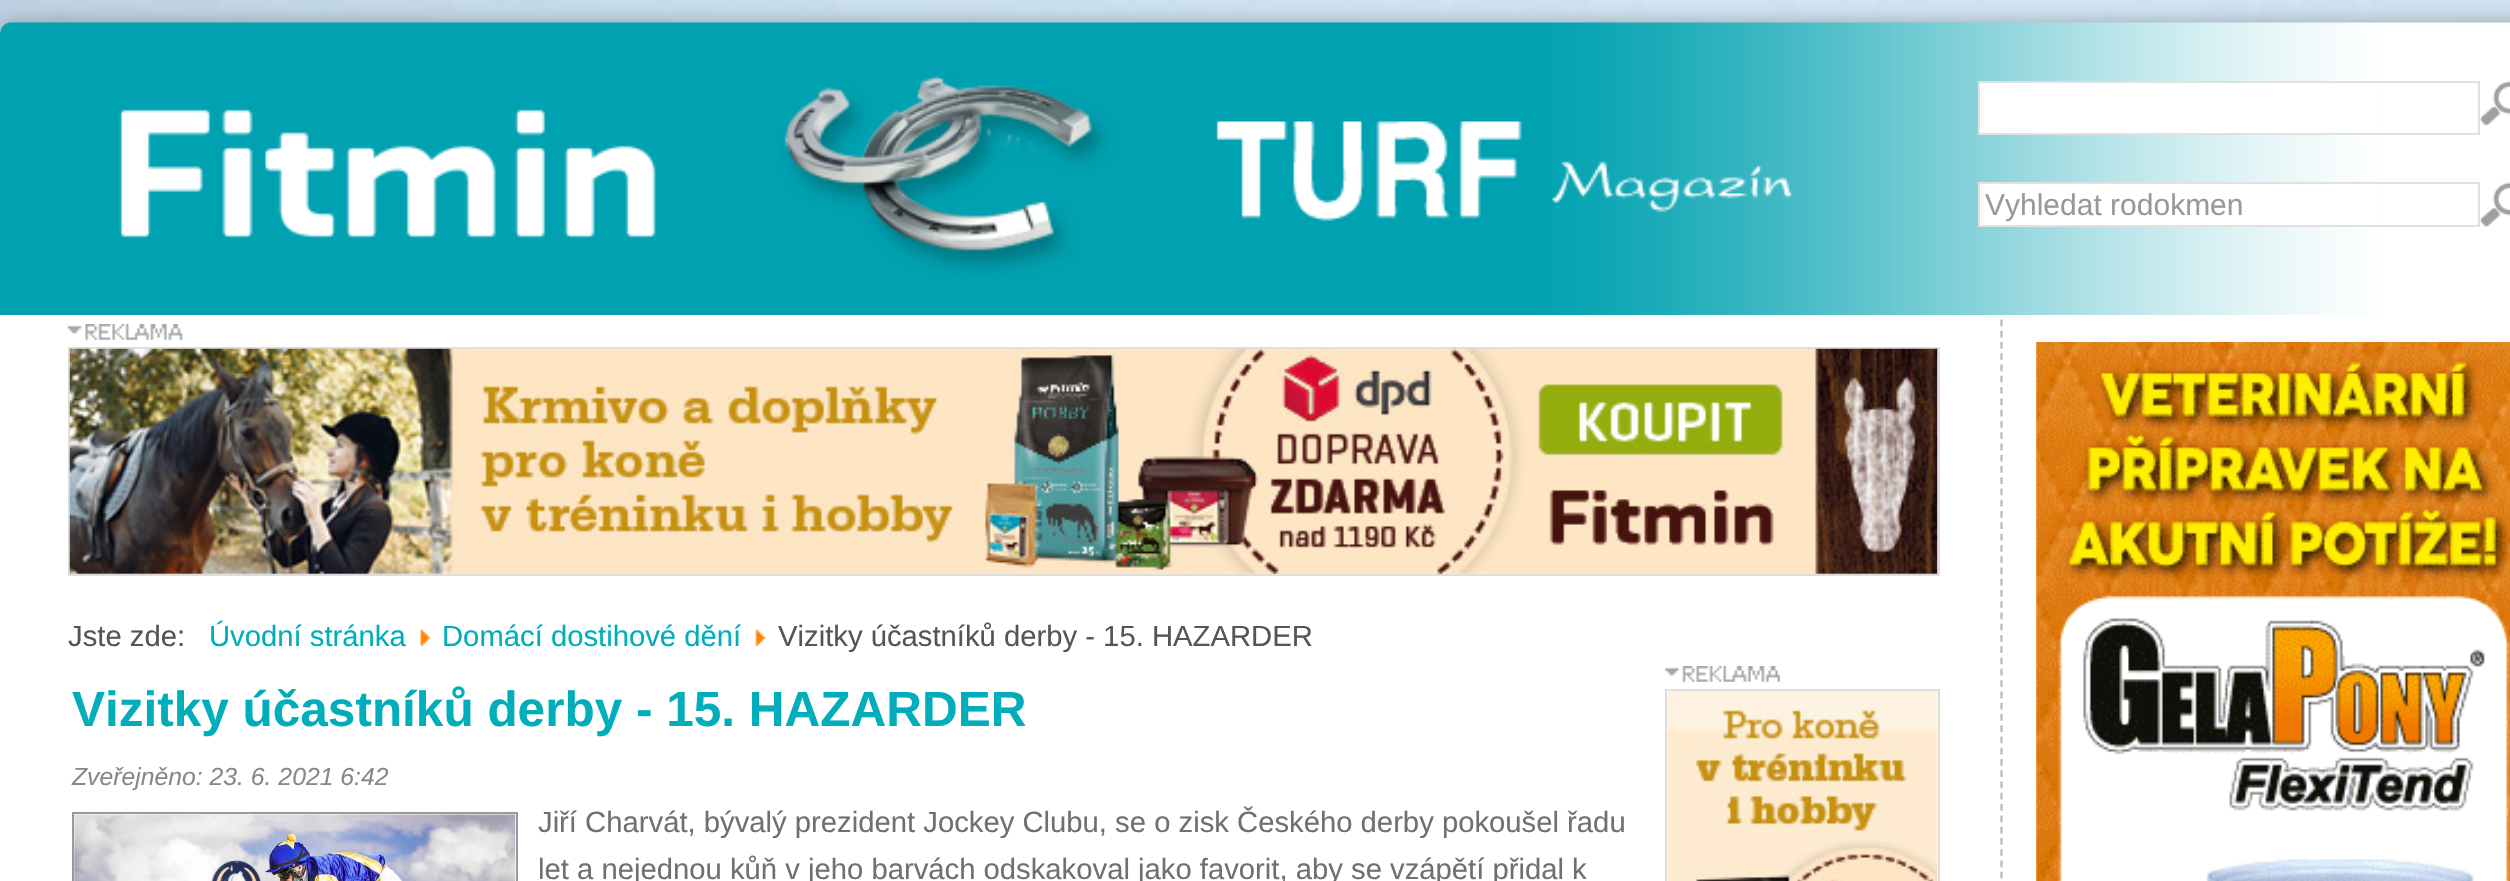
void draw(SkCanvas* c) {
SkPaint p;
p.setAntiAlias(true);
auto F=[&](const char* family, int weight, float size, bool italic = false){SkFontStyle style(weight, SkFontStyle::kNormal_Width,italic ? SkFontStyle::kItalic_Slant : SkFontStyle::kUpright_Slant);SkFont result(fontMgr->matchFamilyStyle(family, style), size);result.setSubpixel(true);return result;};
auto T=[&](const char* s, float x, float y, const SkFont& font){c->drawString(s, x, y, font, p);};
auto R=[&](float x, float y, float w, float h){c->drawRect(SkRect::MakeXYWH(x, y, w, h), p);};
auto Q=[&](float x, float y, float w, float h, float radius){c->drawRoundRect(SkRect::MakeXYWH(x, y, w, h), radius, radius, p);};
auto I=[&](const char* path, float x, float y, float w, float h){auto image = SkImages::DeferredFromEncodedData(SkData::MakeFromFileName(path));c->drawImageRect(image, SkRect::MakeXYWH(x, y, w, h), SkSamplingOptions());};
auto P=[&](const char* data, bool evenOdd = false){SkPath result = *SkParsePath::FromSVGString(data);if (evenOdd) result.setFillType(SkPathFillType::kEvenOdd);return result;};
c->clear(0xffffffff);
I("1.png",0,0,2510,34);
p.setColor(0x4d000000);
p.setMaskFilter(SkMaskFilter::MakeBlur(kNormal_SkBlurStyle, 11));
c->drawRoundRect(SkRect::MakeXYWH(0,23,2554,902),11,11,p);
p.setMaskFilter(nullptr);
p.setColor(0xffffffff);
Q(0,23,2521,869,11);
I("2.png",0,22,2510,293);
I("3.png",119,109,537,130);
R(1980,83,395,50);
p.setStroke(true);
p.setStrokeWidth(2);
p.setColor(0xffe1e1e1);
c->drawRect(SkRect::MakeXYWH(1979,82,500,52),p);
I("4.png",2480,81,30,45);
p.setStroke(false);
p.setColor(0xffffffff);
R(1980,184,395,41);
p.setStroke(true);
p.setColor(0xffe1e1e1);
c->drawRect(SkRect::MakeXYWH(1979,183,500,43),p);
auto f1 = F("Liberation Sans",400,30);
p.setStroke(false);
p.setColor(0xff999999);
T("Vyhledat rodokmen",1985,215,f1);
I("5.png",2480,182,30,46);
I("6.png",67,324,116,16);
p.setStroke(true);
p.setColor(0xffdddddd);
c->drawRect(SkRect::MakeXYWH(69,348,1870,227),p);
I("7.png",69,348,1869,226);
auto f2 = F("Liberation Sans",400,29.25);
p.setStroke(false);
p.setColor(0xff555555);
T("Jste zde:",68,646,f2);
p.setColor(0xff00adba);
T("Úvodní stránka",209,646,f2);
I("8.png",420,629,11,17);
T("Domácí dostihové dění",442,646,f2);
I("9.png",755,629,11,17);
p.setColor(0xff555555);
T("Vizitky účastníků derby - 15. HAZARDER",778,646,f2);
auto f3 = F("Liberation Sans",700,49.5);
p.setColor(0xff00adba);
T("Vizitky účastníků derby - 15. HAZARDER",72,726,f3);
auto f4 = F("Liberation Sans",400,24.75,true);
p.setColor(0xff888888);
T("Zveřejněno: 23. 6. 2021 6:42",72,785,f4);
p.setStroke(true);
p.setColor(0xff97999c);
c->drawRect(SkRect::MakeXYWH(73,813,444,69),p);
I("10.png",74,814,442,67);
p.setStroke(false);
p.setColor(0xff6f7072);
T("Jiří Charvát, bývalý prezident Jockey Clubu, se o zisk Českého derby pokoušel řadu",538,832,f2);
T("let a nejednou kůň v jeho barvách odskakoval jako favorit, aby se vzápětí přidal k",538,879,f2);
I("11.png",1665,666,115,16);
p.setStroke(true);
p.setColor(0xffdddddd);
c->drawRect(SkRect::MakeXYWH(1666,690,273,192),p);
I("12.png",1667,690,271,191);
p.setStrokeWidth(2.2);
p.setColor(0xffb8b9bb);
p.setPathEffect(SkDashPathEffect::Make({{6.75f,4.52f}}, 0));
c->drawPath(P("M2001.5 319.5v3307.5"),p);
p.setPathEffect(nullptr);
I("13.png",2036,342,474,539);
}
